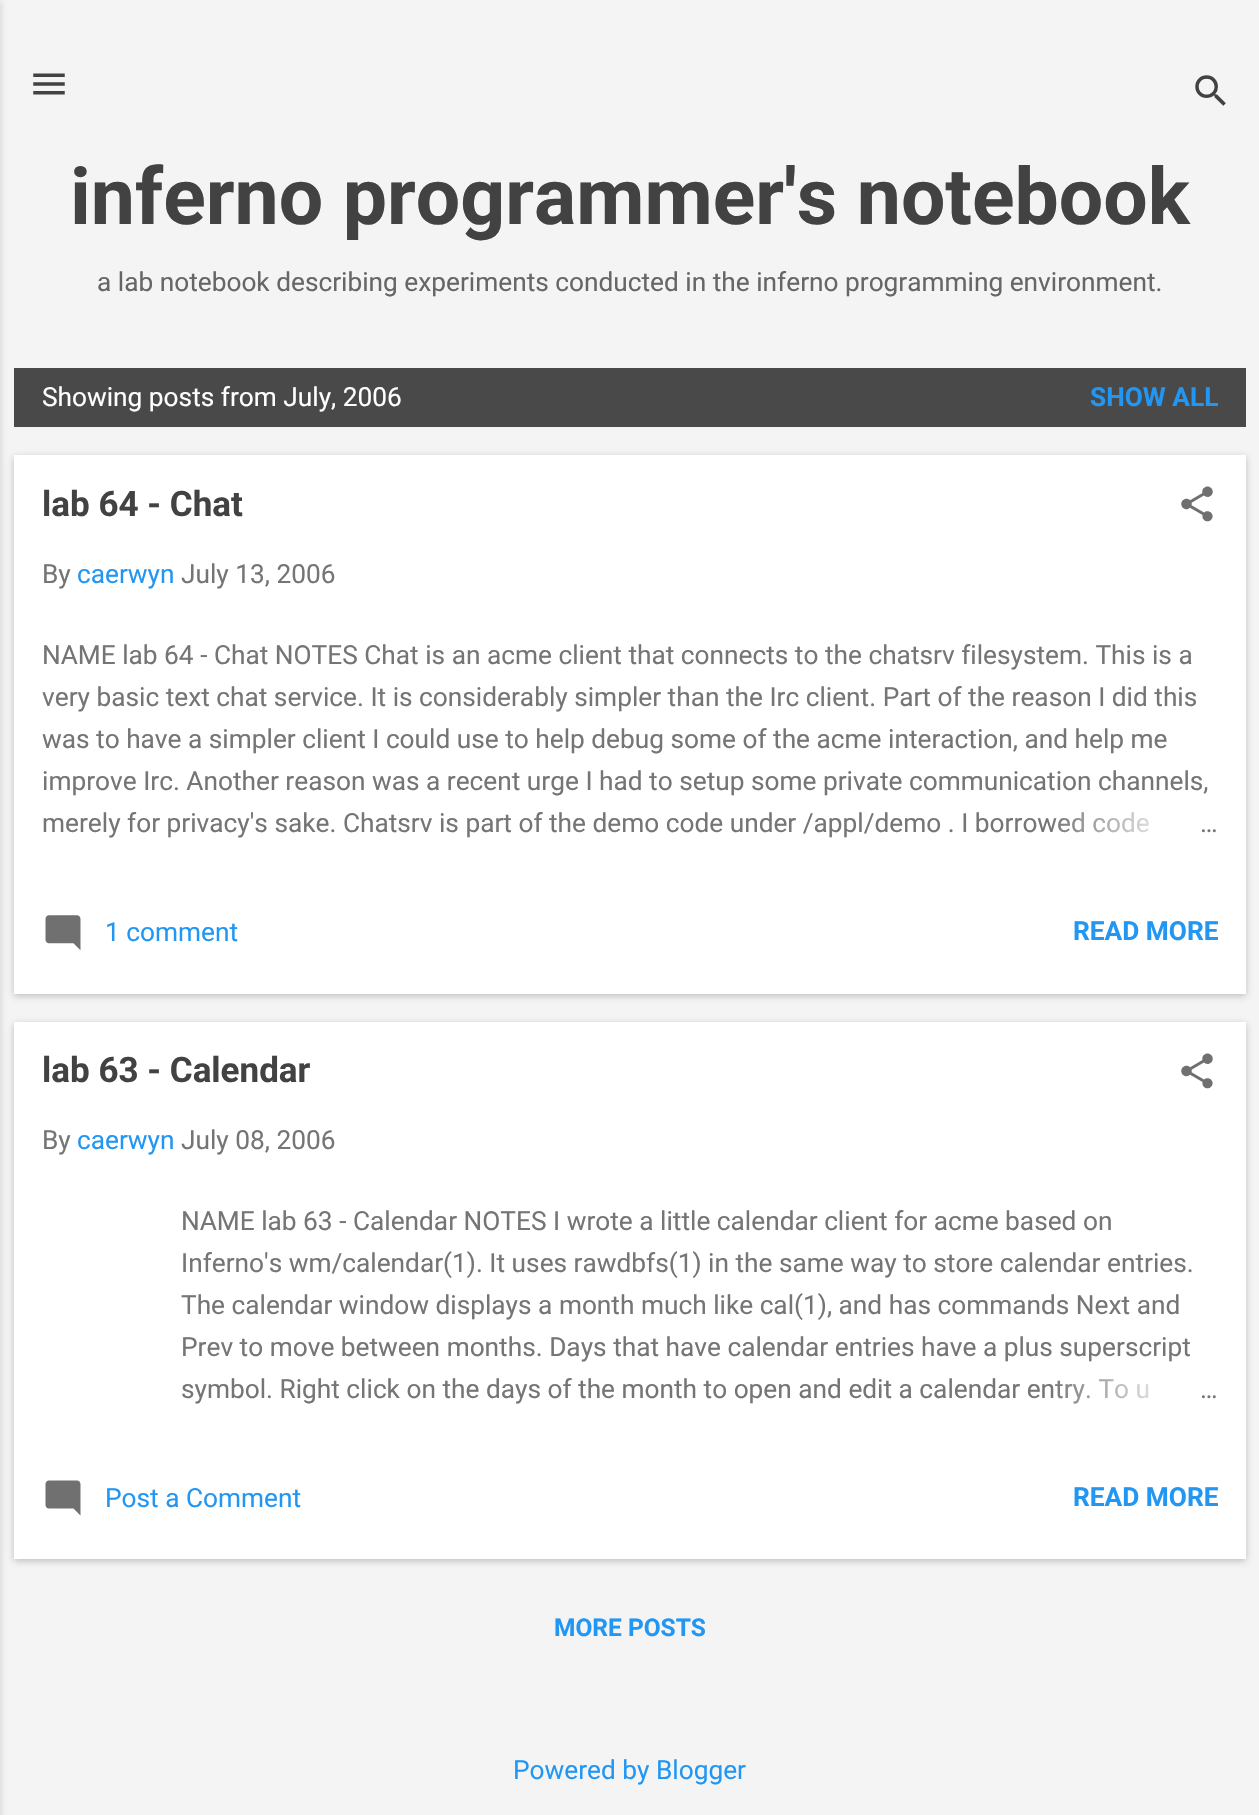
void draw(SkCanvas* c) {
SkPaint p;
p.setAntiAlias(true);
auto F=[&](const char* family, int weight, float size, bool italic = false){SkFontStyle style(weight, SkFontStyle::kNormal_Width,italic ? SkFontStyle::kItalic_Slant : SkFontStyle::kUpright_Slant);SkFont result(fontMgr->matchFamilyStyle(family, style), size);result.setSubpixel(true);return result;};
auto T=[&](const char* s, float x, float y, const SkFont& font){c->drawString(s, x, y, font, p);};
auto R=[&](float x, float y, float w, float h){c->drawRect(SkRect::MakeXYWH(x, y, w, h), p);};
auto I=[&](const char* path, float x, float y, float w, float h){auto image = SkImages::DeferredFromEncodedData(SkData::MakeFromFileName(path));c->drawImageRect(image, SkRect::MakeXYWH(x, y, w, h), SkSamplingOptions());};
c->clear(0xfff4f4f4);
p.setColor(0x1a000000);
p.setMaskFilter(SkMaskFilter::MakeBlur(kNormal_SkBlurStyle, 2.5));
c->drawRect(SkRect::MakeXYWH(-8,2,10,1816),p);
p.setMaskFilter(nullptr);
I("1.png",33,73,32,22);
I("2.png",1195,75,31,31);
auto f1 = F("Roboto",700,78.75);
p.setColor(0xff424242);
T("inferno programmer's notebook",70,224,f1);
auto f2 = F("Roboto",400,26.25);
p.setColor(0xff666666);
T("a lab notebook describing experiments conducted in the inferno programming environment.",97,291,f2);
p.setColor(0xff494949);
R(14,368,1232,59);
p.setColor(0xffffffff);
T("Showing posts from July, 2006",42,406,f2);
auto f3 = F("Roboto",700,26.25);
p.setColor(0xff2196f3);
T("SHOW ALL",1090,406,f3);
p.setColor(0x4d3c4043);
p.setMaskFilter(SkMaskFilter::MakeBlur(kNormal_SkBlurStyle, 3.5));
c->drawRect(SkRect::MakeXYWH(14,457,1232,539),p);
p.setMaskFilter(nullptr);
p.setColor(0xffffffff);
R(14,455,1232,539);
auto f4 = F("Roboto",700,35);
p.setColor(0xff424242);
T("lab 64 - Chat",42,516,f4);
I("3.png",1181,486,32,36);
p.setColor(0xff757575);
T("By",42,583,f2);
p.setColor(0xff2196f3);
T("caerwyn",77,583,f2);
p.setColor(0xff757575);
T("July 13, 2006",181,583,f2);
T("NAME lab 64 - Chat NOTES Chat is an acme client that connects to the chatsrv filesystem. This is a",42,664,f2);
T("very basic text chat service. It is considerably simpler than the Irc client. Part of the reason I did this",42,706,f2);
T("was to have a simpler client I could use to help debug some of the acme interaction, and help me",42,748,f2);
T("improve Irc. Another reason was a recent urge I had to setup some private communication channels,",42,790,f2);
T("merely for privacy's sake. Chatsrv is part of the demo code under /appl/demo . I borrowed code",42,832,f2);
{
const SkColor colors[] = {0xffffffff,0xffffffff,0x00ffffff};
const float stops[] = {0,.2,1};
const SkPoint ends[] = {{1218,824}, {1050,824}};
p.setShader(SkGradientShader::MakeLinear(ends, colors, stops, 3, SkTileMode::kClamp));
p.setAlpha(255);
}
R(1053,812,96,21);
p.setShader(nullptr);
p.setColor(0xff757575);
T("…",1200,832,f2);
I("4.png",45,915,36,35);
p.setColor(0xff2196f3);
T("1 comment",105,941,f2);
T("READ MORE",1073,940,f3);
p.setColor(0x4d3c4043);
p.setMaskFilter(SkMaskFilter::MakeBlur(kNormal_SkBlurStyle, 3.5));
c->drawRect(SkRect::MakeXYWH(14,1024,1232,537),p);
p.setMaskFilter(nullptr);
p.setColor(0xffffffff);
R(14,1022,1232,537);
p.setColor(0xff424242);
T("lab 63 - Calendar",42,1082,f4);
I("5.png",1181,1053,32,36);
p.setColor(0xff757575);
T("By",42,1149,f2);
p.setColor(0xff2196f3);
T("caerwyn",77,1149,f2);
p.setColor(0xff757575);
T("July 08, 2006",181,1149,f2);
T("NAME lab 63 - Calendar NOTES I wrote a little calendar client for acme based on",181,1230,f2);
T("Inferno's wm/calendar(1). It uses rawdbfs(1) in the same way to store calendar entries.",181,1272,f2);
T("The calendar window displays a month much like cal(1), and has commands Next and",181,1314,f2);
T("Prev to move between months. Days that have calendar entries have a plus superscript",181,1356,f2);
T("symbol. Right click on the days of the month to open and edit a calendar entry. To u",181,1398,f2);
{
const SkColor colors[] = {0xffffffff,0xffffffff,0x00ffffff};
const float stops[] = {0,.2,1};
const SkPoint ends[] = {{1218,1390}, {1050,1390}};
p.setShader(SkGradientShader::MakeLinear(ends, colors, stops, 3, SkTileMode::kClamp));
p.setAlpha(255);
}
R(1055,1379,94,25);
p.setShader(nullptr);
p.setColor(0xff757575);
T("…",1200,1398,f2);
I("6.png",45,1480,36,36);
p.setColor(0xff2196f3);
T("Post a Comment",105,1507,f2);
T("READ MORE",1073,1506,f3);
auto f5 = F("Roboto",700,24.5);
T("MORE POSTS",554,1636,f5);
T("Powered by Blogger",513,1779,f2);
}
